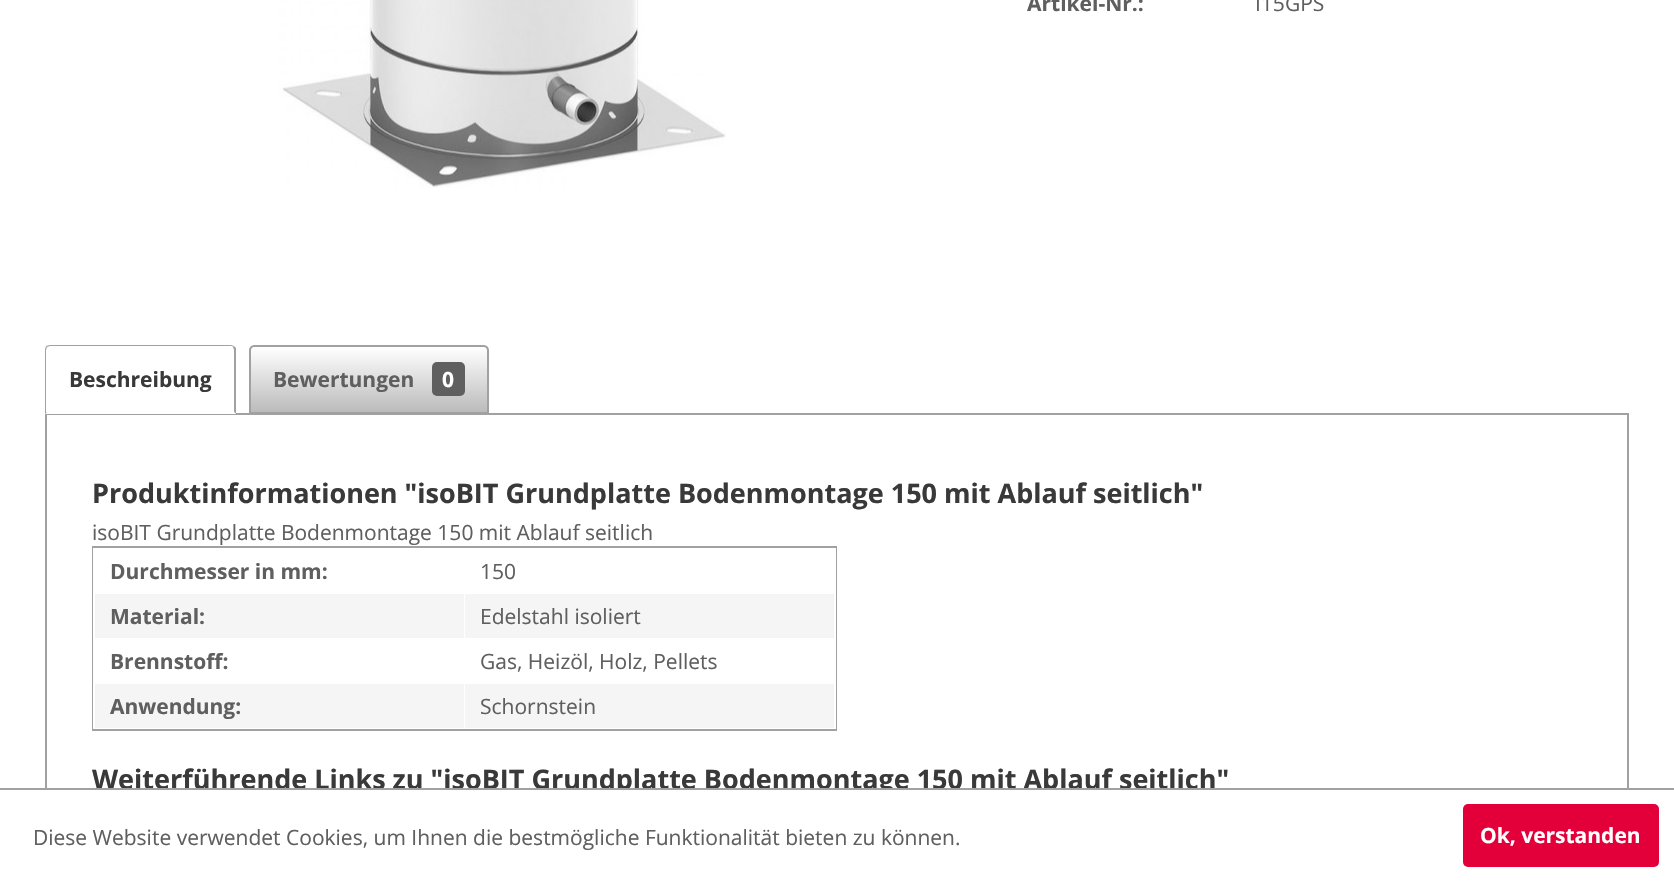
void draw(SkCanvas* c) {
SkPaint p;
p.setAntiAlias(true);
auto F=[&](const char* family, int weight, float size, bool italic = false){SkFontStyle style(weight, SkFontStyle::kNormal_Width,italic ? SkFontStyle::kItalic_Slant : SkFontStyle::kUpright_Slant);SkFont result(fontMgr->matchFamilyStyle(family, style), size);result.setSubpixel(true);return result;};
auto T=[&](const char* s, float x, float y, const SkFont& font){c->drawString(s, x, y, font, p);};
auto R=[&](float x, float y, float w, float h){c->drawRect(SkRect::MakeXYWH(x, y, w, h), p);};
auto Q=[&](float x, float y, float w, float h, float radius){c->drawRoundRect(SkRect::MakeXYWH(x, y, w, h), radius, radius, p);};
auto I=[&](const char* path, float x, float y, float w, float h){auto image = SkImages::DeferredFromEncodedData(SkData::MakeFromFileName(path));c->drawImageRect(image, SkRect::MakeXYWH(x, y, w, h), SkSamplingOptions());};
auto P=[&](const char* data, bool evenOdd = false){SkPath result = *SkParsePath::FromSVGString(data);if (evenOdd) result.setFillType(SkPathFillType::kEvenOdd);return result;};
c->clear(0xffffffff);
I("1.png",277,0,449,188);
auto f1 = F("Open Sans",700,21);
p.setColor(0xff5f5f5f);
T("Artikel-Nr.:",1027,11,f1);
auto f2 = F("Open Sans",400,21);
T("I15GPS",1255,11,f2);
p.setStroke(true);
p.setStrokeWidth(2);
p.setColor(0xffa1a1a1);
c->drawRect(SkRect::MakeXYWH(46,414,1582,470),p);
p.setStroke(false);
p.setColor(0xffffffff);
c->drawPath(P("M50 345h181c3 0 5 2 5 5v64h-191v-64c0-3 2-5 5-5z"),p);
p.setColor(0xffa1a1a1);
c->drawPath(P("M50 345c-2 0-3 1-4 1l1 1l3-1h182l1 1l1-1l-3-1z"),p);
c->drawPath(P("M236 348v66l-2-2v-62l-1-3l1-1z"),p);
p.setColor(0xffffffff);
c->drawPath(P("M236 414l-2-2h-187l-2 2z"),p);
p.setColor(0xffa1a1a1);
c->drawPath(P("M45 414l2-2h-1v-62l1-3l-1-1c0 1-1 2-1 4z"),p);
p.setColor(0xff393939);
T("Beschreibung",69,387,f1);
{
const SkColor colors[] = {0xffffffff,0xffbababa};
const float stops[] = {0,1};
const SkPoint ends[] = {{369,347}, {369,413}};
p.setShader(SkGradientShader::MakeLinear(ends, colors, stops, 2, SkTileMode::kClamp));
p.setAlpha(255);
}
c->drawPath(P("M254 347h231c1.5 0 3 1.5 3 3v63h-237v-63c0-1.5 1.5-3 3-3z"),p);
p.setStroke(true);
p.setShader(nullptr);
p.setColor(0xffa1a1a1);
c->drawPath(P("M254 346h230c2 0 4 2 4 4v63h-238v-63c0-2 2-4 4-4z"),p);
p.setStroke(false);
p.setColor(0xff5f5f5f);
T("Bewertungen",273,387,f1);
Q(432,362,33,34,5);
p.setColor(0xffffffff);
T("0",442,387,f1);
auto f3 = F("Open Sans",700,27);
p.setColor(0xff393939);
T("Produktinformationen \"isoBIT Grundplatte Bodenmontage 150 mit Ablauf seitlich\"",92,503,f3);
p.setColor(0xff5f5f5f);
T("isoBIT Grundplatte Bodenmontage 150 mit Ablauf seitlich",92,540,f2);
p.setStroke(true);
p.setColor(0xffa1a1a1);
c->drawRect(SkRect::MakeXYWH(93,547,743,183),p);
p.setStroke(false);
p.setColor(0xffffffff);
R(93,548,743,181);
p.setColor(0xff5f5f5f);
T("Durchmesser in mm:",110,579,f1);
T("150",480,579,f2);
p.setColor(0xfff5f5f5);
R(95,594,369,44);
p.setColor(0xff5f5f5f);
T("Material:",110,624,f1);
p.setColor(0xfff5f5f5);
R(465,594,369,44);
p.setColor(0xff5f5f5f);
T("Edelstahl isoliert",480,624,f2);
T("Brennstoff:",110,669,f1);
T("Gas, Heizöl, Holz, Pellets",480,669,f2);
p.setColor(0xfff5f5f5);
R(95,684,369,44);
p.setColor(0xff5f5f5f);
T("Anwendung:",110,714,f1);
p.setColor(0xfff5f5f5);
R(465,684,369,44);
p.setColor(0xff5f5f5f);
T("Schornstein",480,714,f2);
p.setColor(0xff393939);
T("Weiterführende Links zu \"isoBIT Grundplatte Bodenmontage 150 mit Ablauf seitlich\"",92,789,f3);
p.setColor(0xffffffff);
R(45,790,1584,93);
p.setColor(0xffa1a1a1);
R(0,788,1674,2);
p.setColor(0xff5f5f5f);
T("Diese Website verwendet Cookies, um Ihnen die bestmögliche Funktionalität bieten zu können.",33,845,f2);
p.setColor(0xffe3003a);
Q(1463,804,196,63,5);
p.setColor(0xffffffff);
T("Ok, verstanden",1480,843,f1);
}
